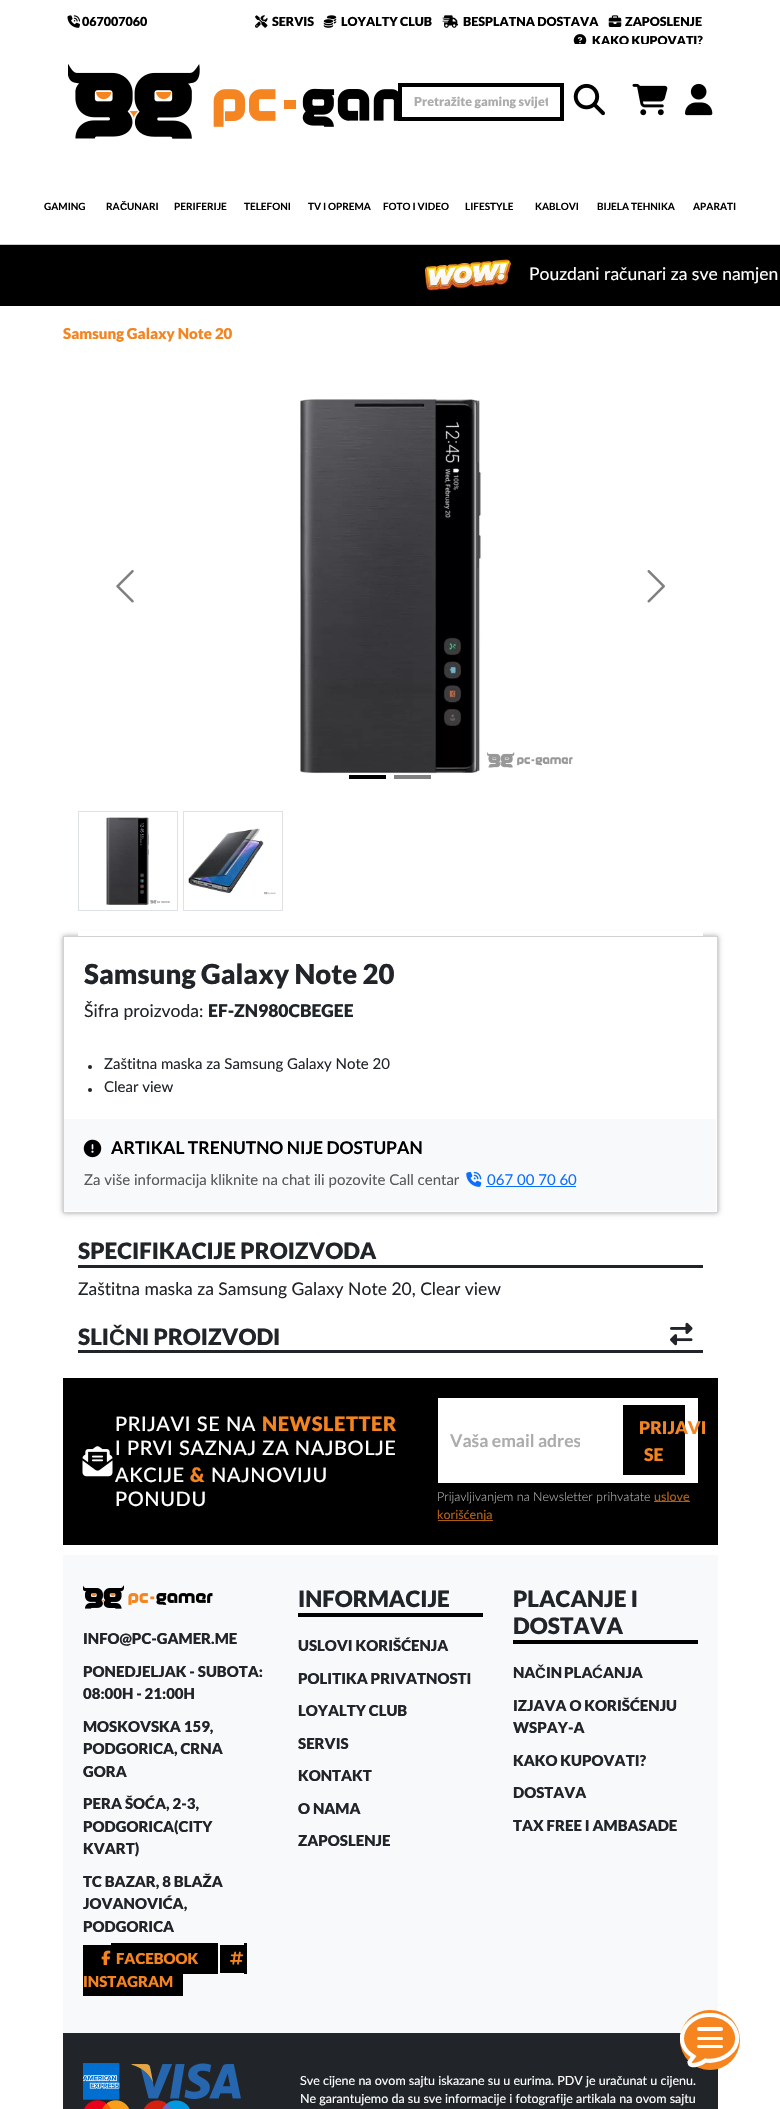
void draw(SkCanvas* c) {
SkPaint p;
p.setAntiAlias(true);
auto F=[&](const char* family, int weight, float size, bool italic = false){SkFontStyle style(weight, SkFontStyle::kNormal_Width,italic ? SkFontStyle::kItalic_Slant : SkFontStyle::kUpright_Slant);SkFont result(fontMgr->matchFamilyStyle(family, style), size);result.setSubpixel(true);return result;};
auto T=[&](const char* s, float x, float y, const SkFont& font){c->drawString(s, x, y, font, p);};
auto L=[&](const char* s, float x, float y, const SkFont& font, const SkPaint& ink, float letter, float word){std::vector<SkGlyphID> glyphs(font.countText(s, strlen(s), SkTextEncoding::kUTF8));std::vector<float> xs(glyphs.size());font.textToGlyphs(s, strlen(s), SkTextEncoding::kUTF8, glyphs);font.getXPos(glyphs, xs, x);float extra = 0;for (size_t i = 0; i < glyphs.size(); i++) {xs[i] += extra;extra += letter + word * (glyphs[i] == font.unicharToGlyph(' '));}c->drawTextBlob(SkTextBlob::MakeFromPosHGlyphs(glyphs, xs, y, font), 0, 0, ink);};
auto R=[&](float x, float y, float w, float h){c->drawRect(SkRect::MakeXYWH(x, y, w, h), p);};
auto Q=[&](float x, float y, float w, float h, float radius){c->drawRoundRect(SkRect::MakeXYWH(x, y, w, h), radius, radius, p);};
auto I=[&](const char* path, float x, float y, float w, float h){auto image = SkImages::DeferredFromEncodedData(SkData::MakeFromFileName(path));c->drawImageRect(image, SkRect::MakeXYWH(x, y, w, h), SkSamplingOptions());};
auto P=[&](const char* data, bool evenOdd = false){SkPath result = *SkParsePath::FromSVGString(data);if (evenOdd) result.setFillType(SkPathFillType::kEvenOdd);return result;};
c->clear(0xffffffff);
I("1.png",67,15,13,13);
auto f1 = F("Lato",900,12.5);
p.setColor(0xff000000);
T("067007060",82,26,f1);
I("2.png",255,15,13,13);
T("SERVIS",272,26,f1);
I("3.png",323,15,14,13);
T("LOYALTY CLUB",341,26,f1);
I("4.png",442,15,17,13);
T("BESPLATNA DOSTAVA",463,26,f1);
I("5.png",608,15,14,12);
T("ZAPOSLENJE",625,26,f1);
I("6.png",573,34,14,10);
T("KAKO KUPOVATI?",592,45,f1);
p.setColor(0xffffffff);
R(592,44,109,2);
I("7.png",68,64,330,75);
p.setStroke(true);
p.setStrokeWidth(4);
p.setColor(0xff000000);
c->drawRect(SkRect::MakeXYWH(400,85,162,34),p);
c->save();
c->clipRect(SkRect::MakeXYWH(414,94,134,15));
p.setStroke(false);
p.setColor(0xffacacac);
T("Pretražite gaming svijet",414,106,f1);
c->restore();
I("8.png",573,83,32,33);
I("9.png",632,83,36,33);
I("10.png",685,83,28,33);
p.setColor(0xffcccccc);
R(0,244,780,1);
auto f2 = F("Lato",700,10);
p.setColor(0xff000000);
T("GAMING",44,210,f2);
T("RA",106,210,f2);
auto f3 = F("Liberation Sans",700,10);
T("Č",120,210,f3);
T("UNARI",127,210,f2);
T("PERIFERIJE",174,210,f2);
T("TELEFONI",244,210,f2);
T("TV I OPREMA",308,210,f2);
T("FOTO I VIDEO",383,210,f2);
T("LIFESTYLE",465,210,f2);
T("KABLOVI",535,210,f2);
T("BIJELA TEHNIKA",597,210,f2);
T("APARATI",693,210,f2);
R(0,245,780,61);
I("11.png",424,259,87,32);
auto f4 = F("Lato",400,17.5);
p.setColor(0xffffffff);
T("Pouzdani računari za sve namjen",529,280,f4);
auto f5 = F("Lato",900,15);
p.setColor(0xfff48420);
T("Samsung Galaxy Note 20",63,339,f5);
I("12.png",116,570,18,33);
I("13.png",300,399,273,375);
I("14.png",647,570,18,33);
p.setColor(0xff000000);
R(349,775,37,4);
p.setColor(0xff808080);
R(394,775,37,4);
p.setColor(0xffa4a6a4);
p.setMaskFilter(SkMaskFilter::MakeBlur(kNormal_SkBlurStyle, 2.5));
c->drawRect(SkRect::MakeXYWH(63,936,655,277),p);
p.setMaskFilter(nullptr);
p.setColor(0xffffffff);
R(78,931,625,5);
p.setStroke(true);
p.setStrokeWidth(1);
p.setColor(0xffdee2e6);
c->drawRect(SkRect::MakeXYWH(78.5,811.5,99,99),p);
c->drawRect(SkRect::MakeXYWH(183.5,811.5,99,99),p);
I("15.png",106,817,64,88);
I("16.png",188,828,88,67);
p.setStroke(false);
p.setColor(0xffffffff);
c->drawRect(SkRect::MakeXYWH(63.5,936.5,654,276),p);
p.setStroke(true);
p.setColor(0xffd2d2d2);
c->drawRect(SkRect::MakeXYWH(63.5,936.5,654,276),p);
auto f6 = F("Lato",900,27.5);
p.setStroke(false);
p.setColor(0xff212529);
T("Samsung Galaxy Note 20",84,984,f6);
T("Šifra proizvoda:",84,1017,f4);
auto f7 = F("Lato",900,17.5);
T("EF-ZN980CBEGEE",208,1017,f7);
c->drawCircle(90,1067,2,p);
auto f8 = F("Lato",400,15);
T("Zaštitna maska za Samsung Galaxy Note 20",104,1069,f8);
c->drawCircle(90,1090,2,p);
T("Clear view",104,1092,f8);
p.setColor(0xfff8f9fa);
R(64,1119,652,92);
I("17.png",83,1139,19,19);
auto f9 = F("Lato",700,17.5);
p.setColor(0xff000000);
T("ARTIKAL TRENUTNO NIJE DOSTUPAN",111,1154,f9);
p.setColor(0xff575a5d);
T("Za više informacija kliknite na chat ili pozovite Call centar",84,1185,f8);
I("18.png",466,1171,16,16);
p.setColor(0xff0d6efd);
T("067 00 70 60",487,1185,f8);
R(486,1186,90,1);
p.setColor(0xff212529);
R(78,1265,625,3);
auto f10 = F("Lato",900,22.5);
T("SPECIFIKACIJE PROIZVODA",78,1259,f10);
T("Zaštitna maska za Samsung Galaxy Note 20, Clear view",78,1295,f4);
R(78,1350,625,3);
T("SLI",78,1345,f10);
auto f11 = F("Liberation Sans",700,22.5);
T("Č",109,1345,f11);
T("NI PROIZVODI",125,1345,f10);
I("19.png",670,1322,23,24);
p.setColor(0xff000000);
R(63,1378,655,167);
I("20.png",82,1446,31,31);
auto f12 = F("Lato",500,20);
p.setColor(0xffffffff);
L("PRIJAVI SE NA",115,1431,f12,p,.6,0);
auto f13 = F("Lato",900,20);
p.setColor(0xfff48420);
L("NEWSLETTER",262,1431,f13,p,.6,0);
p.setColor(0xffffffff);
L("I PRVI SAZNAJ ZA NAJBOLJE",115,1455,f12,p,.6,0);
L("AKCIJE",115,1482,f12,p,.6,0);
p.setColor(0xfff48420);
L("&",190,1482,f13,p,.6,0);
p.setColor(0xffffffff);
L("NAJNOVIJU",211,1482,f12,p,.6,0);
L("PONUDU",115,1506,f12,p,.6,0);
R(438,1398,260,85);
c->save();
c->clipRect(SkRect::MakeXYWH(450,1430,130,21));
p.setColor(0xffacacac);
T("Vaša email adres",450,1447,f9);
c->restore();
p.setColor(0xff000000);
R(623,1405,62,70);
p.setColor(0xfff48420);
T("PRIJAVI",639,1434,f7);
T("SE",644,1461,f7);
auto f14 = F("Lato",300,12.5);
p.setColor(0xffb3b3b3);
T("Prijavljivanjem na Newsletter prihvatate",437,1501,f14);
p.setColor(0xffab5c16);
R(654,1501,36,1);
auto f15 = F("Lato",500,12.5);
T("uslove",654,1501,f15);
R(438,1520,55,1);
T("korišćenja",437,1519,f15);
p.setColor(0xfff8f9fa);
R(63,1555,655,478);
I("21.png",83,1585,130,24);
p.setColor(0xff212529);
T("INFO@PC-GAMER.ME",83,1644,f5);
T("PONEDJELJAK - SUBOTA:",83,1677,f5);
T("08:00H - 21:00H",83,1699,f5);
T("MOSKOVSKA 159,",83,1732,f5);
T("PODGORICA, CRNA",83,1754,f5);
T("GORA",83,1777,f5);
T("PERA ŠOĆA, 2-3,",83,1809,f5);
T("PODGORICA(CITY",83,1832,f5);
T("KVART)",83,1854,f5);
T("TC BAZAR, 8 BLAŽA",83,1887,f5);
T("JOVANOVIĆA,",83,1909,f5);
T("PODGORICA",83,1932,f5);
p.setColor(0xff000000);
R(83,1945,28,20);
R(111,1943,107,31);
I("22.png",101,1950,10,15);
p.setColor(0xfff48420);
T("FACEBOOK",116,1964,f5);
p.setColor(0xff000000);
R(220,1945,24,28);
R(244,1943,3,31);
R(83,1965,100,31);
I("23.png",230,1951,14,14);
p.setColor(0xfff48420);
T("INSTAGRAM",83,1987,f5);
p.setColor(0xff000000);
R(298,1613,185,4);
p.setColor(0xff212529);
T("INFORMACIJE",298,1607,f10);
T("USLOVI KORIŠĆENJA",298,1651,f5);
T("POLITIKA PRIVATNOSTI",298,1684,f5);
T("LOYALTY CLUB",298,1716,f5);
T("SERVIS",298,1749,f5);
T("KONTAKT",298,1781,f5);
T("O NAMA",298,1814,f5);
T("ZAPOSLENJE",298,1846,f5);
p.setColor(0xff000000);
R(513,1640,185,4);
p.setColor(0xff212529);
T("PLACANJE I",513,1607,f10);
T("DOSTAVA",513,1634,f10);
T("NA",513,1678,f5);
auto f16 = F("Liberation Sans",700,15);
T("Č",535,1678,f16);
L("IN PLA",546,1678,f5,p,0,-1);
T("Ć",592,1678,f16);
T("ANJA",603,1678,f5);
T("IZJAVA O KORIŠĆENJU",513,1711,f5);
T("WSPAY-A",513,1733,f5);
T("KAKO KUPOVATI?",513,1766,f5);
T("DOSTAVA",513,1798,f5);
T("TAX FREE I AMBASADE",513,1831,f5);
R(63,2033,655,76);
I("24.png",83,2063,37,37);
I("25.png",131,2063,110,36);
I("26.png",84,2100,46,9);
I("27.png",144,2100,46,9);
auto f17 = F("Lato",400,12.5);
p.setColor(0xffffffff);
T("Sve cijene na ovom sajtu iskazane su u eurima. PDV je uračunat u cijenu.",300,2085,f17);
T("Ne garantujemo da su sve informacije i fotografije artikala na ovom sajtu",300,2103,f17);
p.setColor(0xfff6851f);
c->drawCircle(710,2040,30,p);
c->save();
c->clipRect(SkRect::MakeXYWH(680,2013,60,55));
p.setStroke(true);
p.setStrokeWidth(4.2);
p.setColor(0xffffffff);
c->drawPath(P("M709.5 2015c6 0 12.5 1.5 17.5 5c4.5 3 8 8 9.5 13c4.5 18.5-15.5 29.5-31 27.5c-2.5 2-15.5 8.5-16 1.5l4-5.5c-23-14-8.5-41.5 16-41.5z"),p);
c->restore();
p.setStroke(false);
Q(697,2027,26,4,2);
Q(697,2037,26,3,1.5);
Q(697,2045,26,3,1.5);
}
